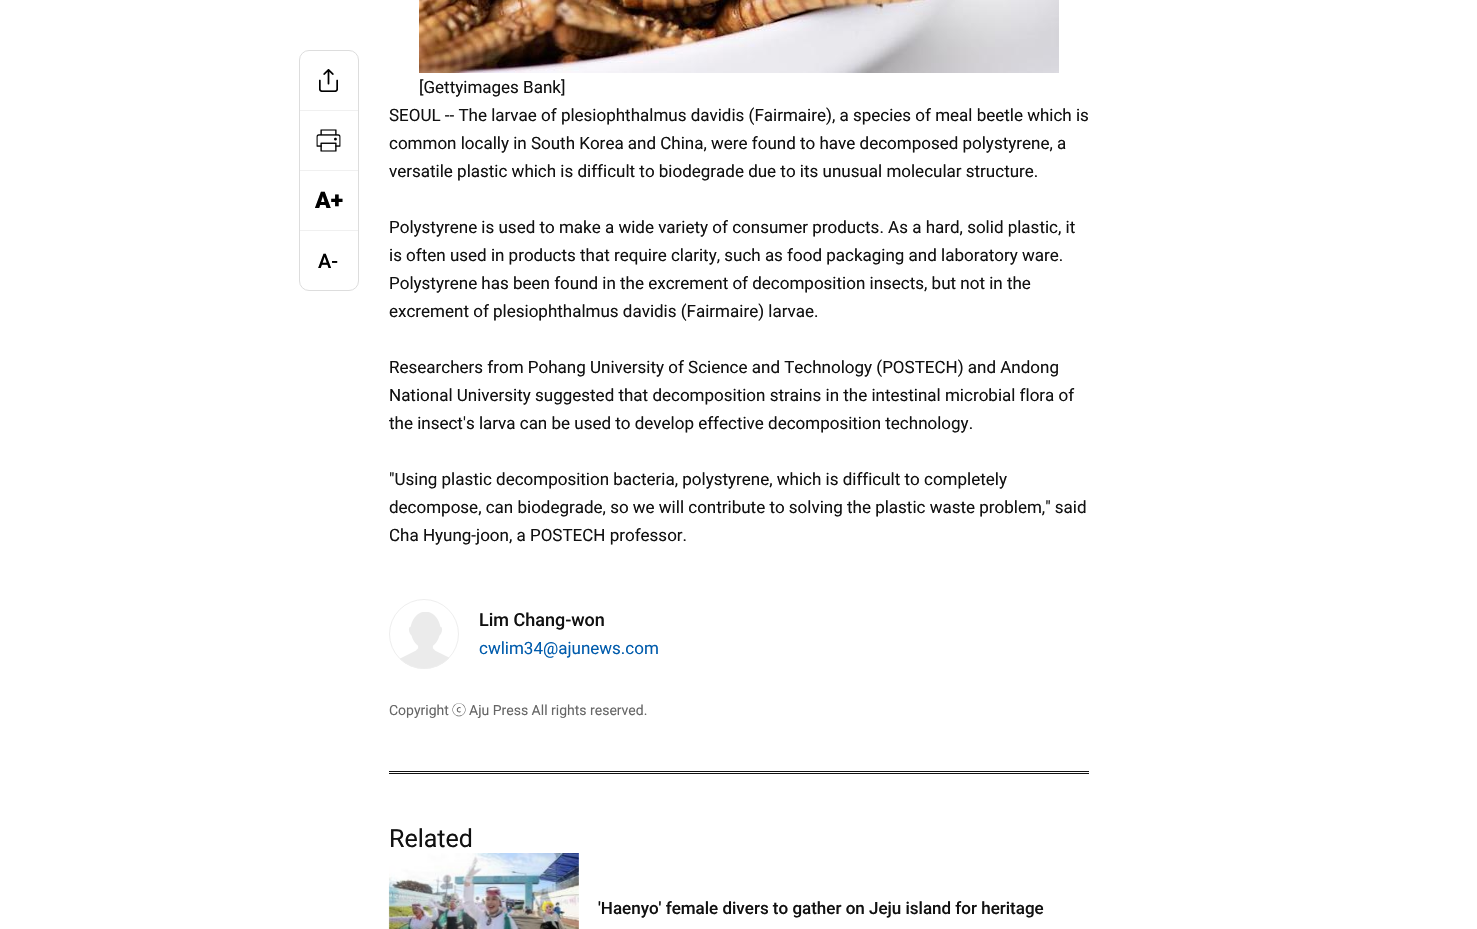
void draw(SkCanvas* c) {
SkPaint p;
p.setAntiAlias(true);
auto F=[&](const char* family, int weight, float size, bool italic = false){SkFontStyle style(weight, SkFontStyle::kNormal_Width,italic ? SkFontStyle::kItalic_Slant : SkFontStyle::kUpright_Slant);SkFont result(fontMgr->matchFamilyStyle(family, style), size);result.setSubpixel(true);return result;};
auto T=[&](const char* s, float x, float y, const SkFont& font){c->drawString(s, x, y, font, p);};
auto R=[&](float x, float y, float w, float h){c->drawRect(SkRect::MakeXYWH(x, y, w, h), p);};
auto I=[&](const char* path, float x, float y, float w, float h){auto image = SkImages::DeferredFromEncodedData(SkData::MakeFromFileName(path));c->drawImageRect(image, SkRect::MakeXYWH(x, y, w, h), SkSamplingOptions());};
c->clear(0xffffffff);
p.setColor(0xff111111);
R(389,771,700,1);
R(389,773,700,1);
p.setStroke(true);
p.setStrokeWidth(1);
p.setColor(0xffdddddd);
c->drawRoundRect(SkRect::MakeXYWH(299.5,50.5,59,240),9.5,9.5,p);
I("1.png",319,69,19,23);
p.setStroke(false);
p.setColor(0xfff0f0f0);
R(300,110,58,1);
I("2.png",316,129,25,23);
R(300,170,58,1);
auto f1 = F("Roboto",900,23);
p.setColor(0xff000000);
T("A+",315,208,f1);
p.setColor(0xfff0f0f0);
R(300,230,58,1);
auto f2 = F("Roboto",500,20);
p.setColor(0xff000000);
T("A-",318,268,f2);
I("3.png",419,0,640,73);
auto f3 = F("Roboto",400,17);
p.setColor(0xff111111);
T("[Gettyimages Bank]",419,93,f3);
T("SEOUL -- The larvae of plesiophthalmus davidis (Fairmaire), a species of meal beetle which is",389,121,f3);
T("common locally in South Korea and China, were found to have decomposed polystyrene, a",389,149,f3);
T("versatile plastic which is difficult to biodegrade due to its unusual molecular structure.",389,177,f3);
T("Polystyrene is used to make a wide variety of consumer products. As a hard, solid plastic, it",389,233,f3);
T("is often used in products that require clarity, such as food packaging and laboratory ware.",389,261,f3);
T("Polystyrene has been found in the excrement of decomposition insects, but not in the",389,289,f3);
T("excrement of plesiophthalmus davidis (Fairmaire) larvae.",389,317,f3);
T("Researchers from Pohang University of Science and Technology (POSTECH) and Andong",389,373,f3);
T("National University suggested that decomposition strains in the intestinal microbial flora of",389,401,f3);
T("the insect's larva can be used to develop effective decomposition technology.",389,429,f3);
T("\"Using plastic decomposition bacteria, polystyrene, which is difficult to completely",389,485,f3);
T("decompose, can biodegrade, so we will contribute to solving the plastic waste problem,\" said",389,513,f3);
T("Cha Hyung-joon, a POSTECH professor.",389,541,f3);
I("4.png",400,612,49,57);
p.setStroke(true);
p.setColor(0xffeeeeee);
c->drawCircle(424,634,34.5,p);
auto f4 = F("Roboto",500,18);
p.setStroke(false);
p.setColor(0xff111111);
T("Lim Chang-won",479,626,f4);
p.setColor(0xff005bac);
T("cwlim34@ajunews.com",479,654,f3);
auto f5 = F("Roboto",400,14);
p.setColor(0xff666666);
T("Copyright",389,715,f5);
auto f6 = F("Noto Sans KR",400,14);
T("ⓒ",452,715,f6);
T("Aju Press All rights reserved.",469,715,f5);
auto f7 = F("Roboto",400,25);
p.setColor(0xff111111);
T("Related",389,847,f7);
I("5.png",388,853,191,76);
auto f8 = F("Roboto",500,17);
T("'Haenyo' female divers to gather on Jeju island for heritage",598,914,f8);
}
